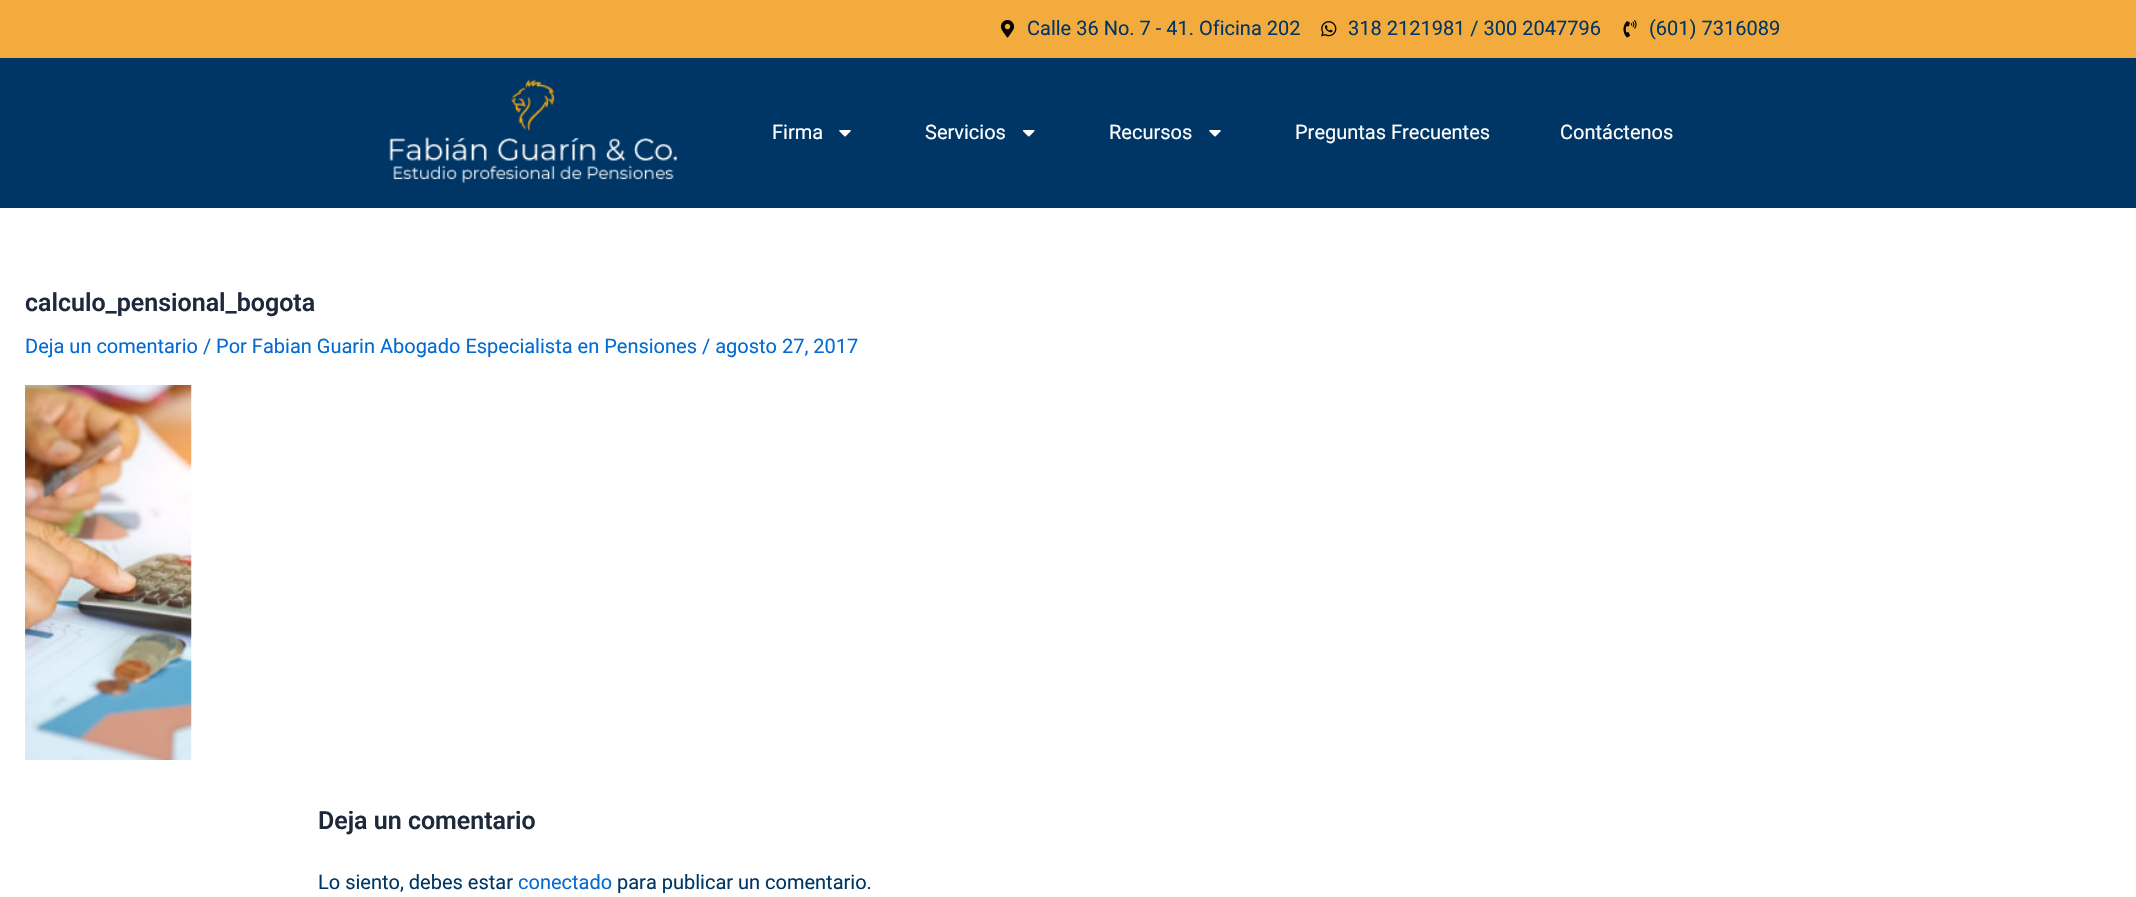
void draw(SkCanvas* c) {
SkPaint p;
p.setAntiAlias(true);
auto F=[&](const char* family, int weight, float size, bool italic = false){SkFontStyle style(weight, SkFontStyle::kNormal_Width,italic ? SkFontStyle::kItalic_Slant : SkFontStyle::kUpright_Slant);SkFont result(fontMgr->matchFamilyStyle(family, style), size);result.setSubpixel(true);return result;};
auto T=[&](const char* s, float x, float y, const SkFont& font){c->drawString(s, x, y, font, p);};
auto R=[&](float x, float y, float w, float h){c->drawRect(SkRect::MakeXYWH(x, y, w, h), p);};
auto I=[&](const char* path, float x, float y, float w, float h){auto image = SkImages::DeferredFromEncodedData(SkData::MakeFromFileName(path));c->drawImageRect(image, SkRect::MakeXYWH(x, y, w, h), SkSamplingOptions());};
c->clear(0xffffffff);
p.setColor(0xfff4ab3d);
R(0,0,2136,58);
I("1.png",1000,20,15,18);
auto f1 = F("Roboto",400,20);
p.setColor(0xff003665);
T("Calle 36 No. 7 - 41. Oficina 202",1027,35,f1);
I("2.png",1321,21,16,16);
T("318 2121981 / 300 2047796",1348,35,f1);
I("3.png",1623,20,14,18);
T("(601) 7316089",1649,35,f1);
R(0,58,2136,150);
I("4.png",389,79,288,104);
p.setColor(0xffffffff);
T("Firma",772,139,f1);
I("5.png",839,130,12,7);
T("Servicios",925,139,f1);
I("6.png",1023,130,12,7);
T("Recursos",1109,139,f1);
I("5.png",1209,130,12,7);
T("Preguntas Frecuentes",1295,139,f1);
T("Contáctenos",1560,139,f1);
auto f2 = F("Roboto",600,25);
p.setColor(0xff1e293b);
T("calculo_pensional_bogota",25,311,f2);
p.setColor(0xff046bd2);
T("Deja un comentario / Por Fabian Guarin Abogado Especialista en Pensiones / agosto 27, 2017",25,353,f1);
I("7.png",25,385,167,375);
p.setColor(0xff1e293b);
T("Deja un comentario",318,829,f2);
p.setColor(0xff003665);
T("Lo siento, debes estar",318,889,f1);
p.setColor(0xff046bd2);
T("conectado",518,889,f1);
p.setColor(0xff003665);
T("para publicar un comentario.",617,889,f1);
}
